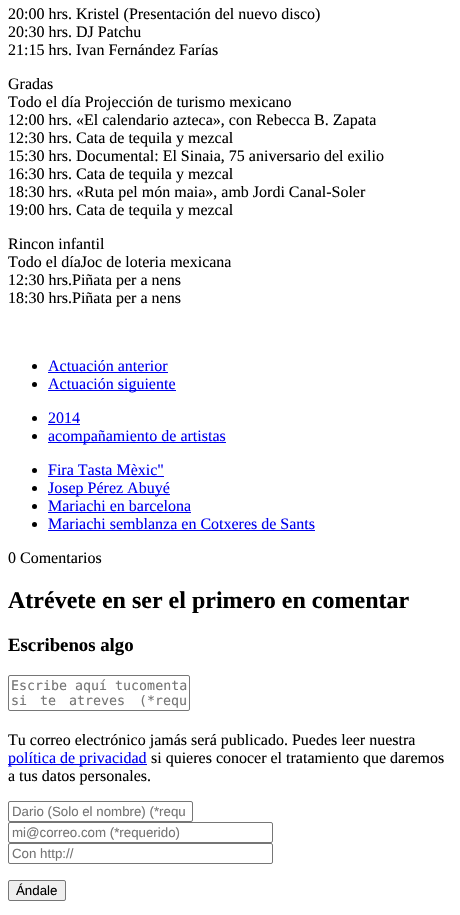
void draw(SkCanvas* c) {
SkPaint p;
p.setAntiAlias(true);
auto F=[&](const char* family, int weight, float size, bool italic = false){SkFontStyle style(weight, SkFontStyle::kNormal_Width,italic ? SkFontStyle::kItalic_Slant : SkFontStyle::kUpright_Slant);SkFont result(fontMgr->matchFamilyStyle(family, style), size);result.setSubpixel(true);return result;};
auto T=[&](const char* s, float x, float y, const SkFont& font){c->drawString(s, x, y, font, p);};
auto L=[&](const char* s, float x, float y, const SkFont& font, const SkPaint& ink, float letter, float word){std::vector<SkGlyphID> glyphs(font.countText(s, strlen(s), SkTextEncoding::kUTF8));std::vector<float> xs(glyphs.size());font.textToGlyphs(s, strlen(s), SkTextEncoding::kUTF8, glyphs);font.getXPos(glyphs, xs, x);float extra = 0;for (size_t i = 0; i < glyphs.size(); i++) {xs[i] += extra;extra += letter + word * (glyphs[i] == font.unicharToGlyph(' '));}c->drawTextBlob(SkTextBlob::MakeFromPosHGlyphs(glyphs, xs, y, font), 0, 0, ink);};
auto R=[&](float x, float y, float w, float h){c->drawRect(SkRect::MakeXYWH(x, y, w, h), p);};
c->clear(0xffffffff);
auto f1 = F("Liberation Serif",400,16);
p.setColor(0xff000000);
T("20:00 hrs. Kristel (Presentación del nuevo disco)",8,19,f1);
T("20:30 hrs. DJ Patchu",8,37,f1);
T("21:15 hrs. Ivan Fernández Farías",8,55,f1);
T("Gradas",8,89,f1);
T("Todo el día Projección de turismo mexicano",8,107,f1);
T("12:00 hrs. «El calendario azteca», con Rebecca B. Zapata",8,125,f1);
T("12:30 hrs. Cata de tequila y mezcal",8,143,f1);
T("15:30 hrs. Documental: El Sinaia, 75 aniversario del exilio",8,161,f1);
T("16:30 hrs. Cata de tequila y mezcal",8,179,f1);
T("18:30 hrs. «Ruta pel món maia», amb Jordi Canal-Soler",8,197,f1);
T("19:00 hrs. Cata de tequila y mezcal",8,215,f1);
T("Rincon infantil",8,249,f1);
T("Todo el díaJoc de loteria mexicana",8,267,f1);
T("12:30 hrs.Piñata per a nens",8,285,f1);
T("18:30 hrs.Piñata per a nens",8,303,f1);
c->drawCircle(34.5,366.5,2.5,p);
p.setColor(0xff0000ee);
T("Actuación anterior",48,371,f1);
R(48,372,120,1);
p.setColor(0xff000000);
c->drawCircle(34.5,384.5,2.5,p);
p.setColor(0xff0000ee);
R(48,390,128,1);
T("Actuación siguiente",48,389,f1);
p.setColor(0xff000000);
c->drawCircle(34.5,418.5,2.5,p);
p.setColor(0xff0000ee);
T("2014",48,423,f1);
R(48,424,32,1);
p.setColor(0xff000000);
c->drawCircle(34.5,436.5,2.5,p);
p.setColor(0xff0000ee);
R(48,442,178,1);
T("acompañamiento de artistas",48,441,f1);
p.setColor(0xff000000);
c->drawCircle(34.5,470.5,2.5,p);
p.setColor(0xff0000ee);
T("Fira Tasta Mèxic\"",48,475,f1);
R(48,476,116,1);
p.setColor(0xff000000);
c->drawCircle(34.5,488.5,2.5,p);
p.setColor(0xff0000ee);
R(48,494,122,1);
T("Josep Pérez Abuyé",48,493,f1);
p.setColor(0xff000000);
c->drawCircle(34.5,506.5,2.5,p);
p.setColor(0xff0000ee);
T("Mariachi en barcelona",48,511,f1);
R(48,512,143,1);
p.setColor(0xff000000);
c->drawCircle(34.5,524.5,2.5,p);
p.setColor(0xff0000ee);
T("Mariachi semblanza en Cotxeres de Sants",48,529,f1);
R(48,530,267,1);
p.setColor(0xff000000);
T("0 Comentarios",8,563,f1);
auto f2 = F("Liberation Serif",700,24);
T("Atrévete en ser el primero en comentar",8,608,f2);
auto f3 = F("Liberation Serif",700,18.75);
T("Escribenos algo",8,651,f3);
p.setStroke(true);
p.setStrokeWidth(1);
p.setColor(0xff767676);
c->drawRoundRect(SkRect::MakeXYWH(8.5,675.5,181,35),1.5,1.5,p);
auto f4 = F("DejaVu Sans Mono",400,13.3);
p.setStroke(false);
p.setColor(0xff757575);
T("Escribe aquí tucomenta",11,690,f4);
L("si te atreves",11,705,f4,p,0,5);
T("(*requ",139,705,f4);
p.setColor(0xff000000);
T("Tu correo electrónico jamás será publicado. Puedes leer nuestra",8,745,f1);
p.setColor(0xff0000ee);
R(8,764,139,1);
T("política de privacidad",8,763,f1);
p.setColor(0xff000000);
T("si quieres conocer el tratamiento que daremos",151,763,f1);
T("a tus datos personales.",8,781,f1);
p.setStroke(true);
p.setColor(0xff767676);
c->drawRoundRect(SkRect::MakeXYWH(8.5,801.5,184,20),1.5,1.5,p);
auto f5 = F("Liberation Sans",400,13.3);
p.setStroke(false);
p.setColor(0xff757575);
T("Dario (Solo el nombre) (*requ",12,816,f5);
p.setStroke(true);
p.setColor(0xff767676);
c->drawRoundRect(SkRect::MakeXYWH(8.5,822.5,264,20),1.5,1.5,p);
p.setStroke(false);
p.setColor(0xff757575);
T("mi@correo.com (*requerido)",12,837,f5);
p.setStroke(true);
p.setColor(0xff767676);
c->drawRoundRect(SkRect::MakeXYWH(8.5,843.5,264,20),1.5,1.5,p);
p.setStroke(false);
p.setColor(0xff757575);
T("Con http://",12,858,f5);
p.setColor(0xffefefef);
c->drawRoundRect(SkRect::MakeXYWH(8.5,880.5,57,20),1.5,1.5,p);
p.setStroke(true);
p.setColor(0xff767676);
c->drawRoundRect(SkRect::MakeXYWH(8.5,880.5,57,20),1.5,1.5,p);
p.setStroke(false);
p.setColor(0xff000000);
T("Ándale",16,895,f5);
}
